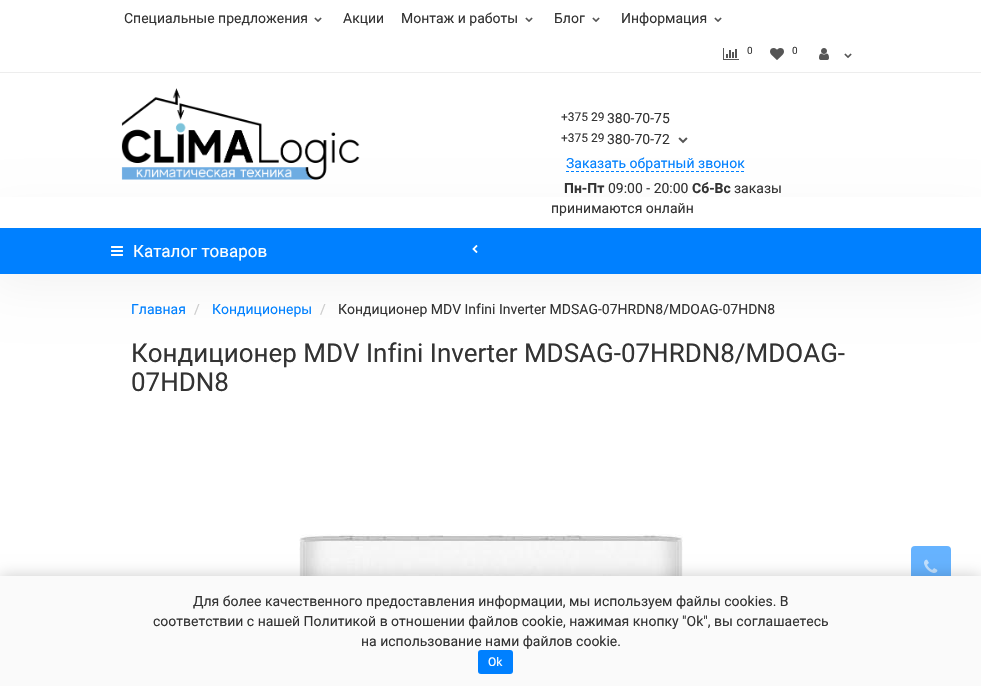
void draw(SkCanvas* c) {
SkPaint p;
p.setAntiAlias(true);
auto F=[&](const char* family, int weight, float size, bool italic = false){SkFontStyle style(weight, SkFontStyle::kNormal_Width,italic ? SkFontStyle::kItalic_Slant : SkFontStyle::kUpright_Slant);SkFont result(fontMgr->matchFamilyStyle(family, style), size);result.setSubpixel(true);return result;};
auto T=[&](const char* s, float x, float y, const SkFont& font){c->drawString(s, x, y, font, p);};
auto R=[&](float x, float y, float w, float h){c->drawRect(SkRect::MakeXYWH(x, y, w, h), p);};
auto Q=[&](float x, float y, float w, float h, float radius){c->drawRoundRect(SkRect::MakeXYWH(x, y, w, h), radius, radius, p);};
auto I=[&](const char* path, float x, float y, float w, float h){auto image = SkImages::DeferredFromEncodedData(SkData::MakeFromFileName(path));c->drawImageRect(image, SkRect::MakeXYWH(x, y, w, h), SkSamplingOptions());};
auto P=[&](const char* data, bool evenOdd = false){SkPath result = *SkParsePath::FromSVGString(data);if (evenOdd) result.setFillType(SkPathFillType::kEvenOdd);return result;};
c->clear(0xffffffff);
p.setColor(0xffededed);
R(0,72,981,1);
auto f1 = F("Roboto",400,14);
p.setColor(0xff333333);
T("Специальные предложения",124,23,f1);
I("1.png",314,17,8,5);
T("Акции",343,23,f1);
T("Монтаж и работы",401,23,f1);
I("1.png",525,17,8,5);
T("Блог",554,23,f1);
I("1.png",592,17,8,5);
T("Информация",621,23,f1);
I("1.png",714,17,8,5);
I("2.png",723,48,16,12);
auto f2 = F("Roboto",400,10);
T("0",747,54,f2);
I("3.png",770,48,14,12);
T("0",792,54,f2);
I("4.png",819,48,10,12);
I("1.png",844,53,8,5);
p.setColor(0x0d000000);
p.setMaskFilter(SkMaskFilter::MakeBlur(kNormal_SkBlurStyle, 25));
c->drawRect(SkRect::MakeXYWH(-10,218,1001,66),p);
p.setMaskFilter(nullptr);
p.setColor(0xffffffff);
R(0,197,981,31);
I("5.png",121,88,239,92);
auto f3 = F("Roboto",400,12);
p.setColor(0xff333333);
T("+375 29",561,121,f3);
T("380-70-75",607,123,f1);
T("+375 29",561,142,f3);
T("380-70-72",607,144,f1);
I("6.png",678,137,10,7);
p.setColor(0xff0080ff);
T("Заказать обратный звонок",566,168,f1);
p.setStroke(true);
p.setStrokeWidth(1);
p.setPathEffect(SkDashPathEffect::Make({{3,2}}, 0));
c->drawPath(P("M566 171.5h178"),p);
p.setPathEffect(nullptr);
auto f4 = F("Roboto",700,14);
p.setStroke(false);
p.setColor(0xff333333);
T("Пн-Пт",564,193,f4);
T("09:00 - 20:00",608,193,f1);
T("Сб-Вс",692,193,f4);
T("заказы",734,193,f1);
T("принимаются онлайн",551,213,f1);
p.setColor(0xff0080ff);
R(0,228,981,46);
I("7.png",111,246,12,10);
auto f5 = F("Roboto",400,17);
p.setColor(0xffffffff);
T("Каталог товаров",133,257,f5);
I("8.png",472,245,6,8);
p.setColor(0xff0080ff);
T("Главная",131,314,f1);
p.setColor(0xffcccccc);
T("/",194,314,f1);
p.setColor(0xff0080ff);
T("Кондиционеры",212,314,f1);
p.setColor(0xffcccccc);
T("/",320,314,f1);
p.setColor(0xff333333);
T("Кондиционер MDV Infini Inverter MDSAG-07HRDN8/MDOAG-07HDN8",338,314,f1);
auto f6 = F("Roboto",400,26);
T("Кондиционер MDV Infini Inverter MDSAG-07HRDN8/MDOAG-",131,362,f6);
T("07HDN8",131,391,f6);
I("9.png",299,534,384,42);
p.setColor(0xff66b3ff);
Q(911,546,40,40,4);
I("10.png",924,559,14,14);
p.setColor(0x33000000);
p.setMaskFilter(SkMaskFilter::MakeBlur(kNormal_SkBlurStyle, 7.5));
c->drawRect(SkRect::MakeXYWH(0,576,981,110),p);
p.setMaskFilter(nullptr);
p.setColor(0xfffafafa);
R(0,576,981,110);
p.setColor(0xff333333);
T("Для более качественного предоставления информации, мы используем файлы сookies. В",193,606,f1);
T("соответствии с нашей Политикой в отношении файлов cookie, нажимая кнопку \"Ok\", вы соглашаетесь",153,626,f1);
T("на использование нами файлов cookie.",361,646,f1);
p.setColor(0xff0080ff);
Q(478,650,35,24,3);
p.setColor(0xffffffff);
T("Ok",488,666,f3);
}
